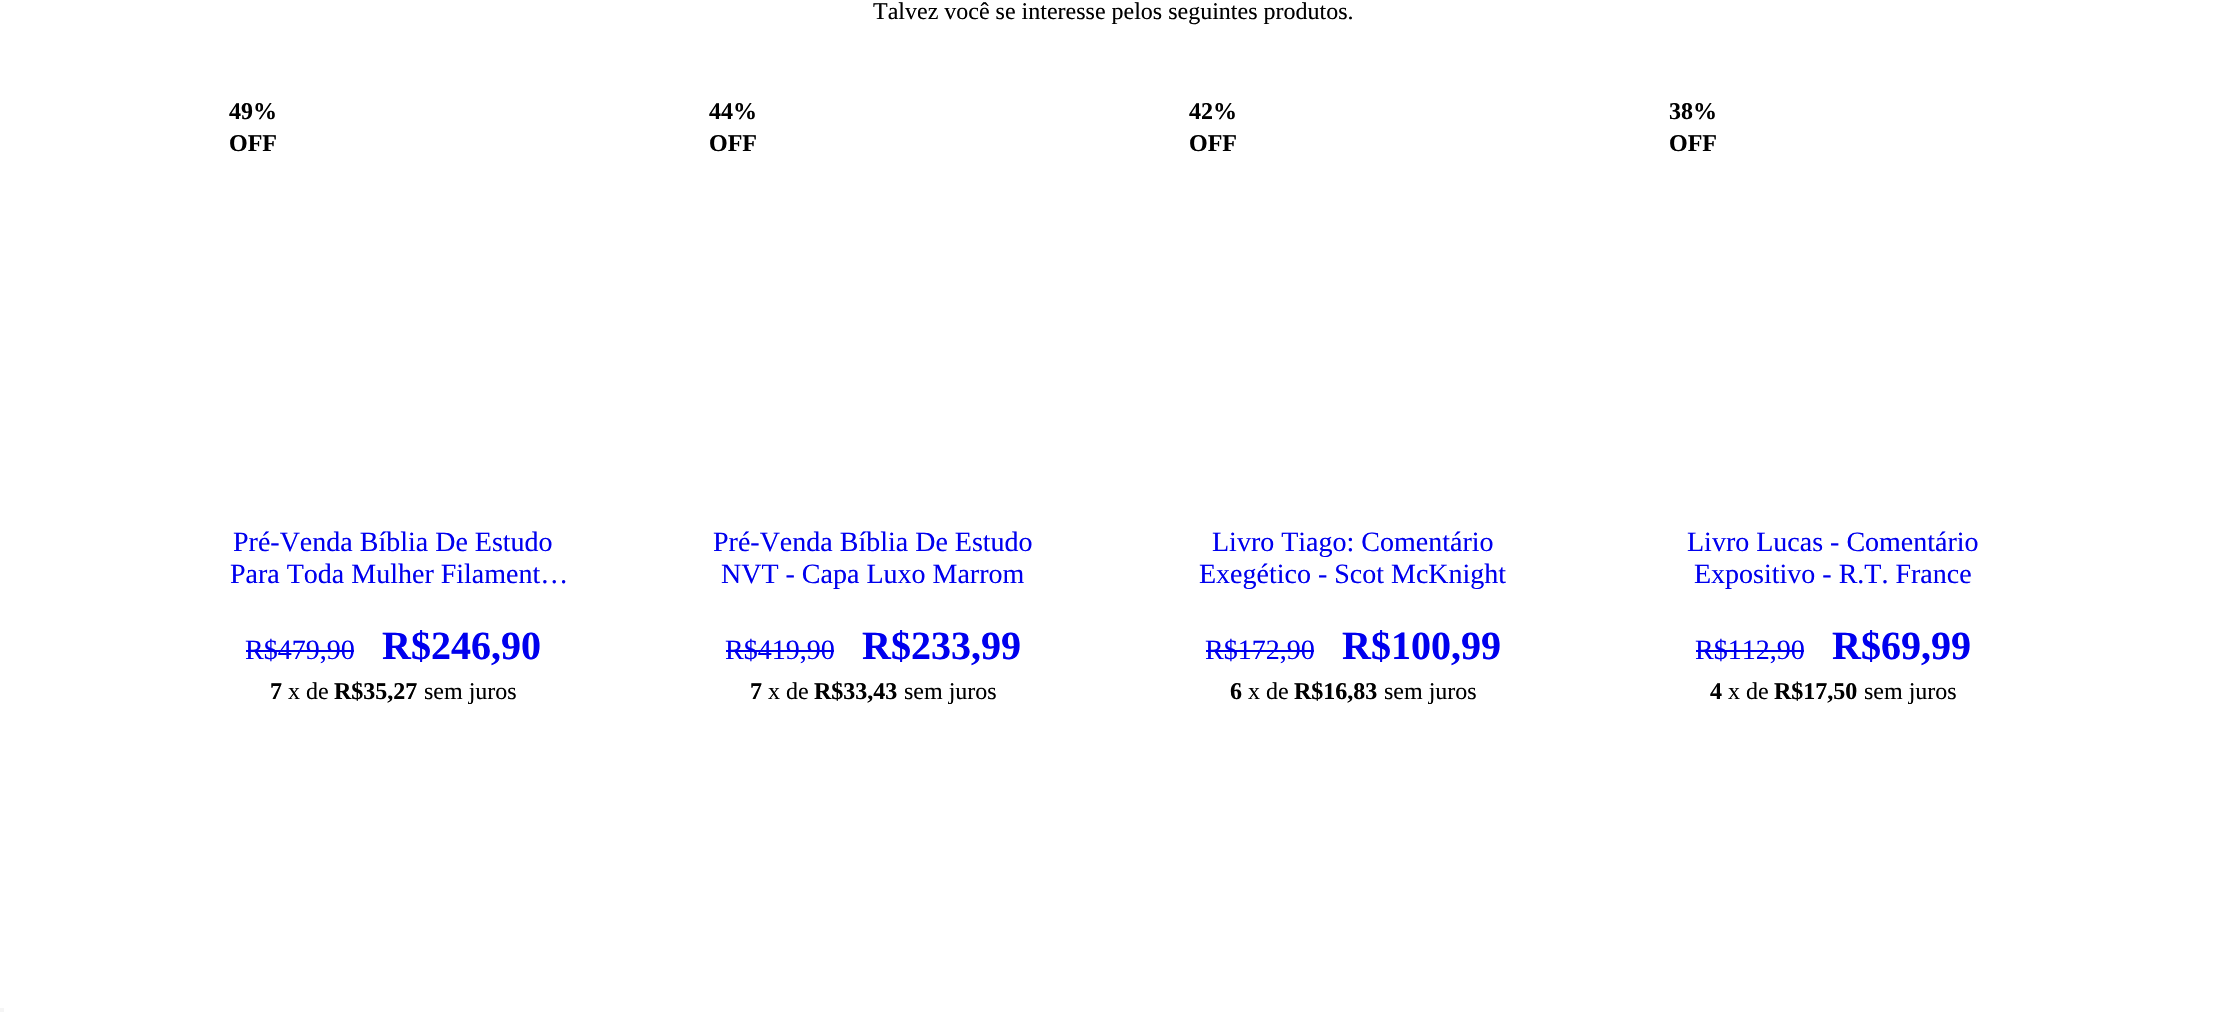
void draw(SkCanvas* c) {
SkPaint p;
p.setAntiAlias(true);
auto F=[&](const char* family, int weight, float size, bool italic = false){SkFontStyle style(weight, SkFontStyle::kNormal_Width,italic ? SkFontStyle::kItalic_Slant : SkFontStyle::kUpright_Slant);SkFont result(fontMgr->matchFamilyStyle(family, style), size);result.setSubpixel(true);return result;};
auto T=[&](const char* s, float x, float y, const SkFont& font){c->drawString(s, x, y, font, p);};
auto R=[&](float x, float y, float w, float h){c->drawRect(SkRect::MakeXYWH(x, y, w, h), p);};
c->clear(0xffffffff);
auto f1 = F("Liberation Serif",400,24);
p.setColor(0xff000000);
T("Talvez você se interesse pelos seguintes produtos.",873,19,f1);
auto f2 = F("Liberation Serif",700,24);
T("49%",229,119,f2);
T("OFF",229,151,f2);
auto f3 = F("Liberation Serif",400,28);
p.setColor(0xff0000ee);
T("Pré-Venda Bíblia De Estudo",233,551,f3);
T("Para Toda Mulher Filament…",230,583,f3);
T("R$479,90",245,659,f3);
R(246,650,108,2);
auto f4 = F("Liberation Serif",700,40);
T("R$246,90",382,659,f4);
p.setColor(0xff000000);
T("7",270,699,f2);
T("x de",288,699,f1);
T("R$35,27",334,699,f2);
T("sem juros",424,699,f1);
T("44%",709,119,f2);
T("OFF",709,151,f2);
p.setColor(0xff0000ee);
T("Pré-Venda Bíblia De Estudo",713,551,f3);
T("NVT - Capa Luxo Marrom",721,583,f3);
T("R$419,90",725,659,f3);
R(726,650,108,2);
T("R$233,99",862,659,f4);
p.setColor(0xff000000);
T("7",750,699,f2);
T("x de",768,699,f1);
T("R$33,43",814,699,f2);
T("sem juros",904,699,f1);
T("42%",1189,119,f2);
T("OFF",1189,151,f2);
p.setColor(0xff0000ee);
T("Livro Tiago: Comentário",1212,551,f3);
T("Exegético - Scot McKnight",1199,583,f3);
T("R$172,90",1205,659,f3);
R(1206,650,108,2);
T("R$100,99",1342,659,f4);
p.setColor(0xff000000);
T("6",1230,699,f2);
T("x de",1248,699,f1);
T("R$16,83",1294,699,f2);
T("sem juros",1384,699,f1);
T("38%",1669,119,f2);
T("OFF",1669,151,f2);
p.setColor(0xff0000ee);
T("Livro Lucas - Comentário",1687,551,f3);
T("Expositivo - R.T. France",1694,583,f3);
T("R$112,90",1695,659,f3);
R(1696,650,108,2);
T("R$69,99",1832,659,f4);
p.setColor(0xff000000);
T("4",1710,699,f2);
T("x de",1728,699,f1);
T("R$17,50",1774,699,f2);
T("sem juros",1864,699,f1);
p.setColor(0xfff5f5f5);
R(0,1008,4,4);
}
